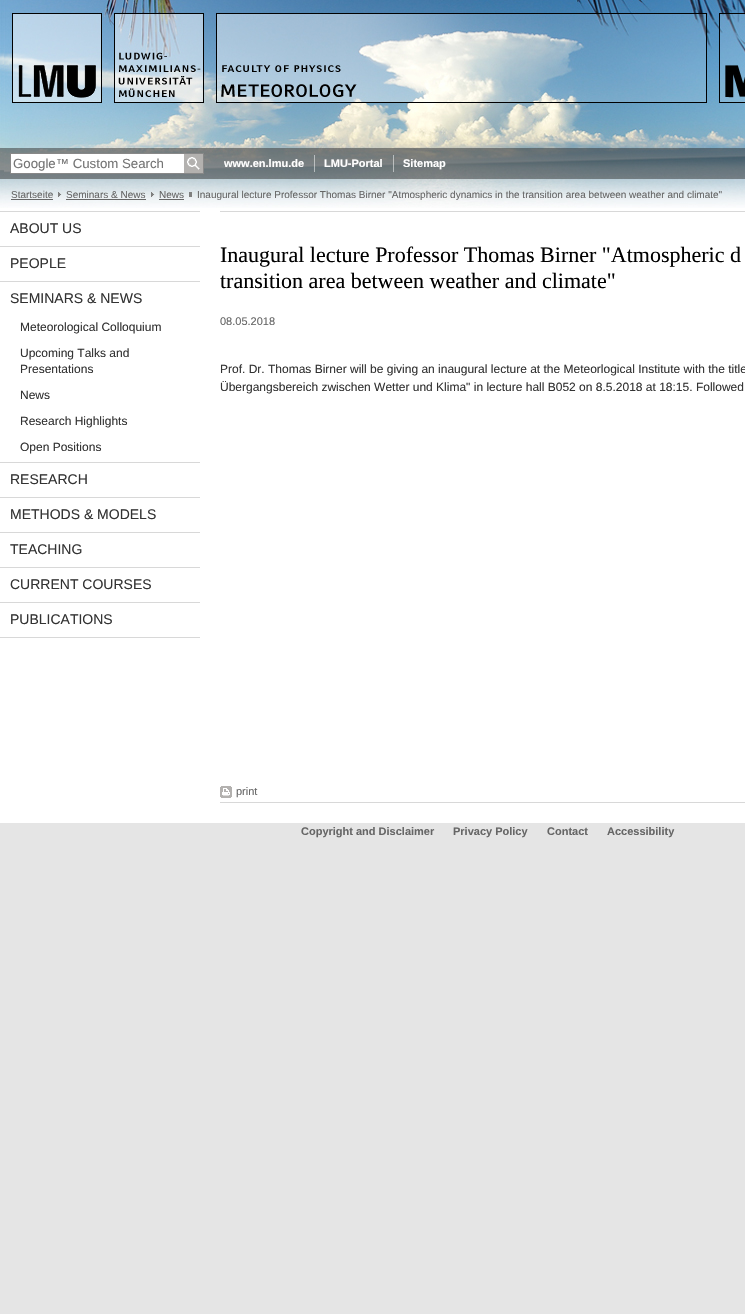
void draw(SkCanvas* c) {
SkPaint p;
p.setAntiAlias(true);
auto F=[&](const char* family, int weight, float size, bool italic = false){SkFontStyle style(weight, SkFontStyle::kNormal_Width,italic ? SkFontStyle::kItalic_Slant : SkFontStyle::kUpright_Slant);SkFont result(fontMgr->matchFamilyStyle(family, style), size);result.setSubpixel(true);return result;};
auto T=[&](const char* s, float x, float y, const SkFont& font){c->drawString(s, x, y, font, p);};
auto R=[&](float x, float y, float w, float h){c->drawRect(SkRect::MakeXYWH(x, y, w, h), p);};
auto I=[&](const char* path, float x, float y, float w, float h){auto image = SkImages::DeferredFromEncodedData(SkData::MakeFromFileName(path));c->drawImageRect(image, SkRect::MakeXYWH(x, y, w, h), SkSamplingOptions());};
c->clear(0xffe5e5e5);
p.setColor(0xffffffff);
R(0,208,745,615);
I("1.png",0,0,745,148);
I("2.png",0,148,745,31);
R(11,154,173,19);
p.setStroke(true);
p.setStrokeWidth(1);
p.setColor(0xff888888);
c->drawRect(SkRect::MakeXYWH(10.5,153.5,193,20),p);
auto f1 = F("Liberation Sans",400,13.25);
p.setStroke(false);
p.setColor(0xff757575);
T("Google™ Custom Search",13,168,f1);
I("3.png",184,154,19,19);
auto f2 = F("Liberation Sans",700,11);
p.setColor(0xffffffff);
T("www.en.lmu.de",224,167,f2);
p.setColor(0x80ffffff);
R(314,155,1,17);
p.setColor(0xffffffff);
T("LMU-Portal",324,167,f2);
p.setColor(0x80ffffff);
R(393,155,1,17);
p.setColor(0xffffffff);
T("Sitemap",403,167,f2);
I("4.png",0,179,745,29);
auto f3 = F("Liberation Sans",400,10);
p.setColor(0xff666666);
T("Startseite",11,198,f3);
R(11,199,42,1);
I("5.png",58,192,4,5);
T("Seminars & News",66,198,f3);
R(66,199,80,1);
I("6.png",151,192,4,5);
T("News",159,198,f3);
R(159,199,25,1);
p.setColor(0xff7f7f7f);
R(189,192,3,5);
p.setColor(0xff666666);
T("Inaugural lecture Professor Thomas Birner \"Atmospheric dynamics in the transition area between weather and climate\"",197,198,f3);
p.setColor(0xffd8d8d8);
R(0,211,200,1);
R(0,246,200,1);
auto f4 = F("Liberation Sans",400,14);
p.setColor(0xff333333);
T("ABOUT US",10,233,f4);
p.setColor(0xffd8d8d8);
R(0,281,200,1);
p.setColor(0xff333333);
T("PEOPLE",10,268,f4);
p.setColor(0xffd8d8d8);
R(0,462,200,1);
p.setColor(0xff333333);
T("SEMINARS & NEWS",10,303,f4);
auto f5 = F("Liberation Sans",400,12);
T("Meteorological Colloquium",20,331,f5);
T("Upcoming Talks and",20,357,f5);
T("Presentations",20,373,f5);
T("News",20,399,f5);
T("Research Highlights",20,425,f5);
T("Open Positions",20,451,f5);
p.setColor(0xffd8d8d8);
R(0,497,200,1);
p.setColor(0xff333333);
T("RESEARCH",10,484,f4);
p.setColor(0xffd8d8d8);
R(0,532,200,1);
p.setColor(0xff333333);
T("METHODS & MODELS",10,519,f4);
p.setColor(0xffd8d8d8);
R(0,567,200,1);
p.setColor(0xff333333);
T("TEACHING",10,554,f4);
p.setColor(0xffd8d8d8);
R(0,602,200,1);
p.setColor(0xff333333);
T("CURRENT COURSES",10,589,f4);
p.setColor(0xffd8d8d8);
R(0,637,200,1);
p.setColor(0xff333333);
T("PUBLICATIONS",10,624,f4);
p.setColor(0xffd8d8d8);
R(220,211,525,1);
auto f6 = F("Liberation Serif",400,22);
p.setColor(0xff000000);
T("Inaugural lecture Professor Thomas Birner \"Atmospheric d",220,262,f6);
T("transition area between weather and climate\"",220,288,f6);
auto f7 = F("Liberation Sans",400,11);
p.setColor(0xff666666);
T("08.05.2018",220,325,f7);
p.setColor(0xff333333);
T("Prof. Dr. Thomas Birner will be giving an inaugural lecture at the Meteorlogical Institute with the title",220,373,f5);
T("Übergangsbereich zwischen Wetter und Klima\" in lecture hall B052 on 8.5.2018 at 18:15. Followed",220,391,f5);
p.setColor(0xffd8d8d8);
R(220,802,525,1);
I("7.png",220,786,12,12);
p.setColor(0xff666666);
T("print",236,795,f7);
T("Copyright and Disclaimer",301,835,f2);
T("Privacy Policy",453,835,f2);
T("Contact",547,835,f2);
T("Accessibility",607,835,f2);
}
